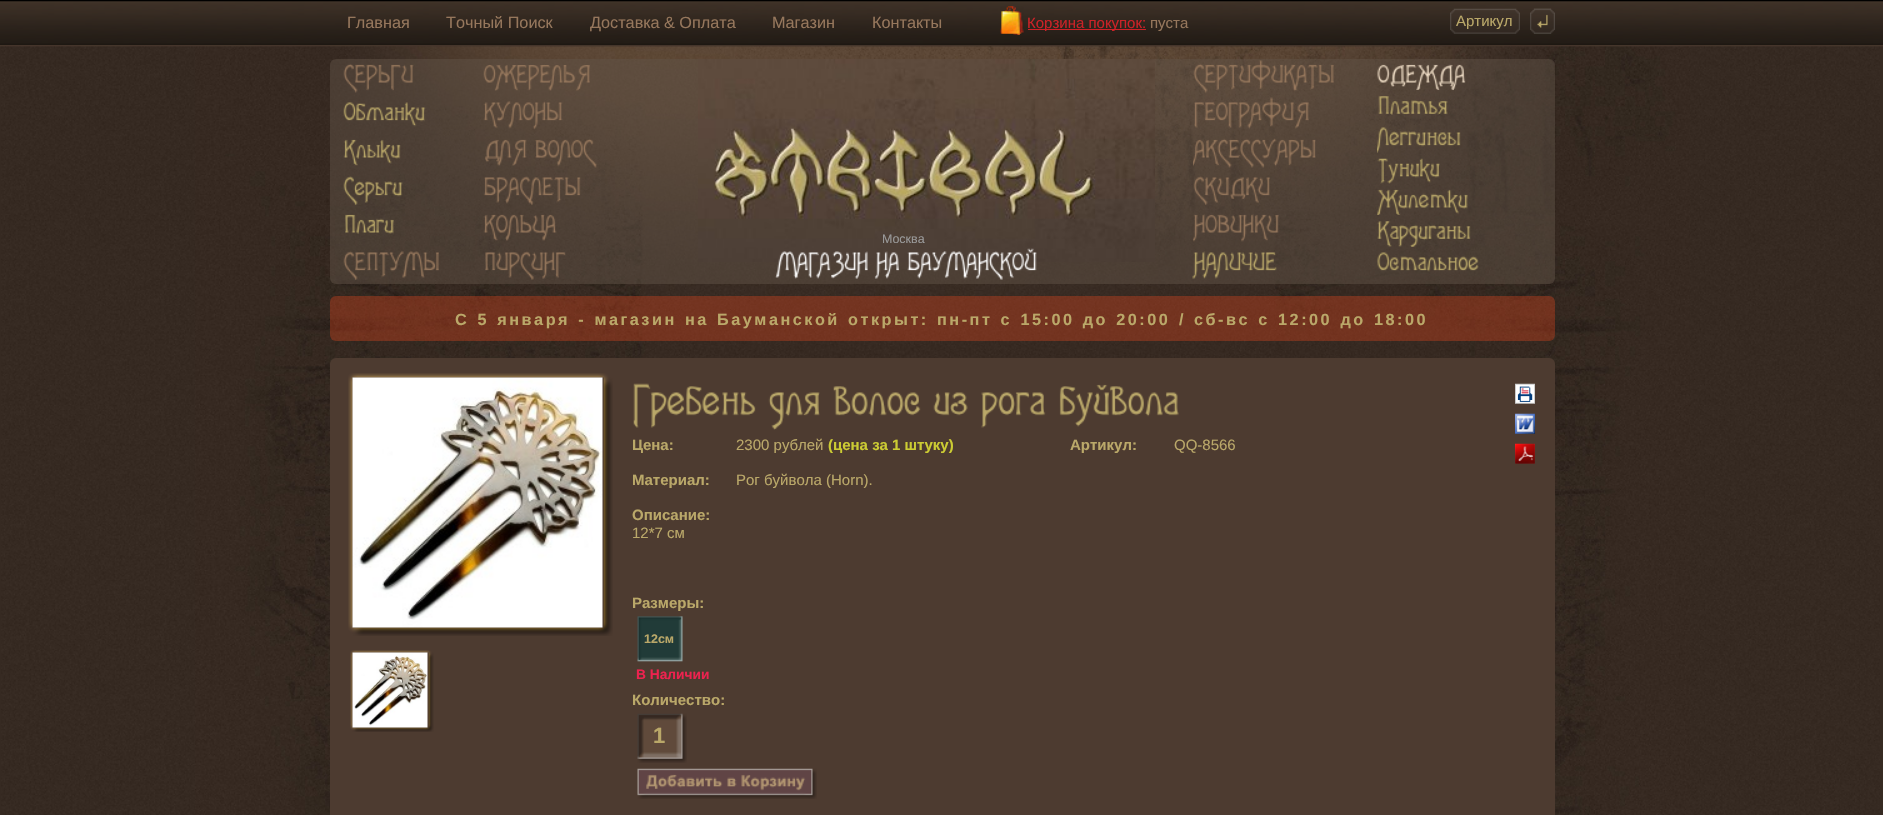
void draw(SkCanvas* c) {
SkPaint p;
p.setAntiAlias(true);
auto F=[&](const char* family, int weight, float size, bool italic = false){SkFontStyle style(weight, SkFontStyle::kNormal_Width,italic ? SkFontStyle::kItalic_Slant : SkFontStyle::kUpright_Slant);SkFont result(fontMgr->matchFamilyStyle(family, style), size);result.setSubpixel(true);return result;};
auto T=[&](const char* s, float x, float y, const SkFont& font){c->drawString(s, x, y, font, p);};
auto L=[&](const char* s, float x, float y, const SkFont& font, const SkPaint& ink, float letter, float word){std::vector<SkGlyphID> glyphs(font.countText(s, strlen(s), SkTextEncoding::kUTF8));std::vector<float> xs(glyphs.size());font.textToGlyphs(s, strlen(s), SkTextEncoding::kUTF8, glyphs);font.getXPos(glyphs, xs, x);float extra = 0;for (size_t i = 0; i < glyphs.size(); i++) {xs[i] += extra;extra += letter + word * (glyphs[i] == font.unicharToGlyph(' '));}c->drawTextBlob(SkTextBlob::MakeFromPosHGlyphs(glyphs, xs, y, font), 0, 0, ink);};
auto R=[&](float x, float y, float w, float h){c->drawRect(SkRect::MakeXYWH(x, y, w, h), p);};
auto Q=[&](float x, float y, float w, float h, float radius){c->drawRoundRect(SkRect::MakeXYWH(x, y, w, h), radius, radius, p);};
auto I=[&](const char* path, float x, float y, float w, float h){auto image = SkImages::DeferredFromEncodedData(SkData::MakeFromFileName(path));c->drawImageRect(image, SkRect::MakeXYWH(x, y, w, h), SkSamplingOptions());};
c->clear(0xff362a22);
I("1.png",1,46,1879,769);
I("2.png",195,46,1495,769);
I("3.png",0,0,1883,47);
auto f1 = F("Liberation Sans",400,16.25);
p.setColor(0xff96775c);
T("Главная",347,28,f1);
T("Точный Поиск",446,28,f1);
T("Доставка & Оплата",590,28,f1);
T("Магазин",772,28,f1);
T("Контакты",872,28,f1);
I("4.png",1000,6,24,29);
p.setColor(0xffcc2227);
R(1028,29,118,1);
auto f2 = F("Liberation Sans",400,15);
T("Корзина покупок:",1027,28,f2);
p.setColor(0xff96775c);
T("пуста",1150,28,f2);
I("5.png",1450,8,70,26);
p.setColor(0xffbaa869);
T("Артикул",1456,26,f2);
I("6.png",1530,8,25,26);
I("7.png",1534,8,17,26);
p.setColor(0x80605146);
Q(330,59,1225,225,6);
I("8.png",343,64,71,29);
I("9.png",343,102,83,25);
I("10.png",343,139,58,27);
I("11.png",343,176,60,29);
I("12.png",345,214,49,20);
I("13.png",343,251,96,29);
I("14.png",483,65,107,26);
I("15.png",483,101,80,28);
I("16.png",485,139,42,27);
I("17.png",535,139,62,29);
I("18.png",483,176,98,29);
I("19.png",483,214,74,27);
I("20.png",485,251,81,29);
I("21.png",698,59,457,203);
I("22.png",1193,60,141,33);
I("23.png",1194,97,115,32);
I("24.png",1193,138,123,30);
I("25.png",1193,176,77,29);
I("26.png",1193,214,86,28);
I("27.png",1192,251,85,28);
I("28.png",1377,64,89,26);
I("29.png",1378,96,70,19);
I("30.png",1377,127,84,26);
I("31.png",1377,158,63,26);
I("32.png",1377,189,91,26);
I("33.png",1377,221,94,26);
I("34.png",1377,252,102,20);
auto f3 = F("Liberation Sans",400,12.5);
p.setColor(0xff999999);
T("Москва",882,243,f3);
I("35.png",775,251,93,28);
I("36.png",874,251,26,28);
I("37.png",907,248,130,32);
p.setColor(0x4dff491c);
Q(330,296,1225,45,6);
auto f4 = F("Liberation Sans",700,16.25);
p.setColor(0xffbaa869);
L("С 5 января - магазин на Бауманской открыт: пн-пт с 15:00 до 20:00",455,325,f4,p,2.5,1.25);
L("/",1179,325,f4,p,2.5,0);
L("сб-вс с 12:00 до 18:00",1194,325,f4,p,2.5,1.25);
p.setColor(0xff4d3b30);
Q(330,358,1225,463,6);
I("38.png",348,373,265,263);
I("39.png",352,377,251,251);
I("40.png",350,650,84,82);
I("41.png",352,652,76,76);
I("42.png",633,383,123,45);
I("43.png",768,392,52,38);
I("44.png",833,386,88,31);
I("45.png",933,392,35,24);
I("46.png",981,392,65,36);
I("47.png",1059,384,120,43);
I("48.png",1515,383,20,21);
I("49.png",1515,413,20,21);
I("50.png",1515,443,20,21);
auto f5 = F("Liberation Sans",700,15);
p.setColor(0xffbaa869);
T("Цена:",632,450,f5);
T("2300 рублей",736,450,f2);
p.setColor(0xffcccc33);
T("(цена за 1 штуку)",828,450,f5);
p.setColor(0xffbaa869);
T("Артикул:",1070,450,f5);
T("QQ-8566",1174,450,f2);
T("Материал:",632,485,f5);
T("Рог буйвола (Horn).",736,485,f2);
T("Описание:",632,520,f5);
T("12*7 см",632,538,f2);
T("Размеры:",632,608,f5);
I("51.png",637,611,46,51);
auto f6 = F("Liberation Sans",700,12.5);
T("12см",644,643,f6);
auto f7 = F("Liberation Sans",700,13.75);
p.setColor(0xffed224f);
T("В Наличии",636,679,f7);
p.setColor(0xffbaa869);
T("Количество:",632,705,f5);
I("52.png",637,713,50,50);
auto f8 = F("Liberation Sans",700,22);
T("1",653,743,f8);
I("53.png",637,768,180,31);
}
